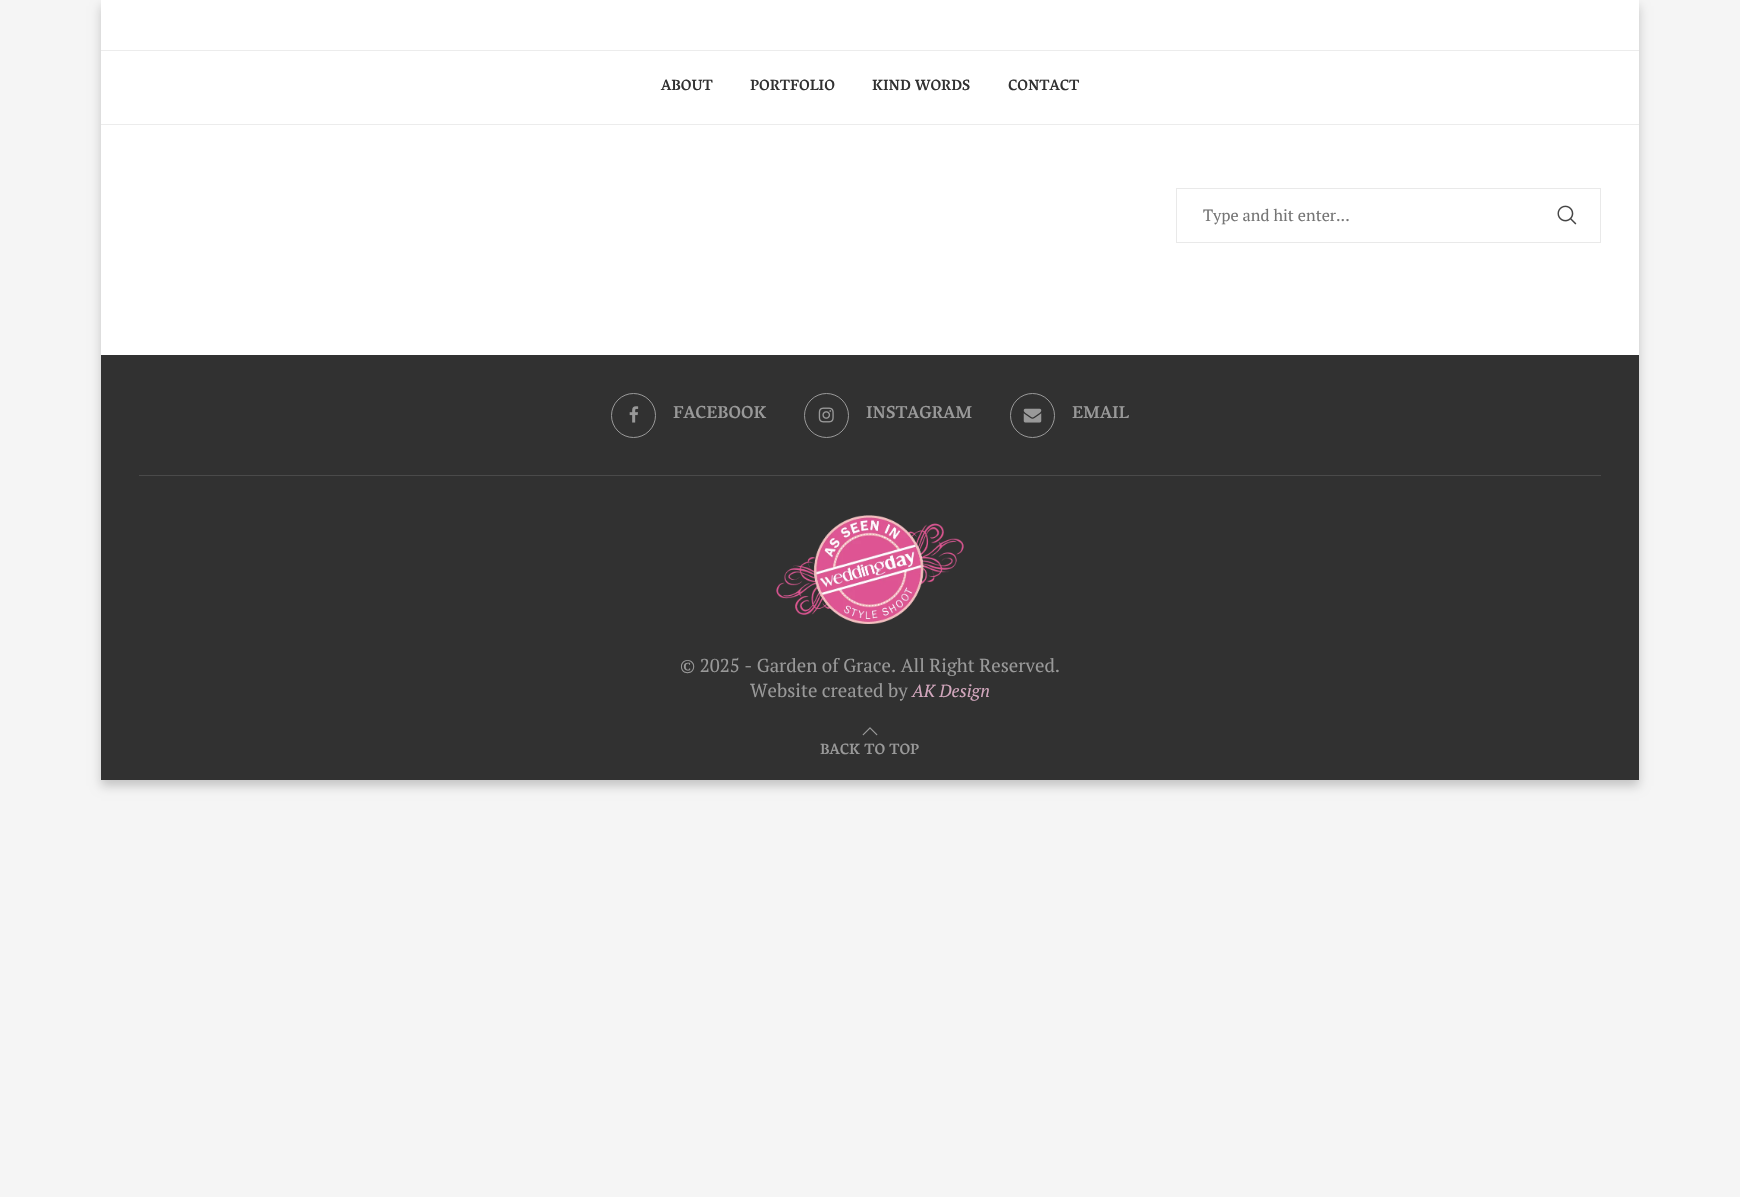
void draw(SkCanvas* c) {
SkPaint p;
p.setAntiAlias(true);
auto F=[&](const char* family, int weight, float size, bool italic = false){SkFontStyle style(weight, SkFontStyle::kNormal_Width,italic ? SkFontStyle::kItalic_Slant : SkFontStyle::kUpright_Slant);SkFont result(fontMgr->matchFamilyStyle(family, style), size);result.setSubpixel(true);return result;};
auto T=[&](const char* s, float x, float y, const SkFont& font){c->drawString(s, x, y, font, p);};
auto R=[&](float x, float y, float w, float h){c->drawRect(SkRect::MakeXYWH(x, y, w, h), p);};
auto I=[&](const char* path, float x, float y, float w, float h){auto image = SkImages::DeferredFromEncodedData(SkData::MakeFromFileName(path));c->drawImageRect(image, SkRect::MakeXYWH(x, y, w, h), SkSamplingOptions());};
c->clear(0xfff5f5f5);
p.setColor(0x33000000);
p.setMaskFilter(SkMaskFilter::MakeBlur(kNormal_SkBlurStyle, 5));
c->drawRect(SkRect::MakeXYWH(101,6,1538,780),p);
p.setMaskFilter(nullptr);
p.setColor(0xffffffff);
R(101,0,1538,355);
p.setColor(0xffececec);
R(101,50,1538,1);
R(101,124,1538,1);
auto f1 = F("Vesper Libre",500,15);
p.setColor(0xff313131);
T("ABOUT",661,90,f1);
T("PORTFOLIO",750,90,f1);
T("KIND WORDS",872,90,f1);
T("CONTACT",1008,90,f1);
p.setStroke(true);
p.setStrokeWidth(1);
p.setColor(0xffe9e9e9);
c->drawRect(SkRect::MakeXYWH(1176.5,188.5,424,54),p);
c->save();
c->clipRect(SkRect::MakeXYWH(1203,204,347,22));
auto f2 = F("PT Serif",400,16.25);
p.setStroke(false);
p.setColor(0xff757575);
T("Type and hit enter...",1203,221,f2);
c->restore();
I("1.png",1557,205,20,20);
p.setColor(0xff313131);
R(101,355,1538,425);
p.setColor(0xff4a4a4a);
R(139,475,1462,1);
p.setStroke(true);
p.setColor(0xff999999);
c->drawCircle(633.5,415.5,22,p);
I("2.png",629,406,10,17);
auto f3 = F("Vesper Libre",500,17.5);
p.setStroke(false);
T("FACEBOOK",673,418,f3);
p.setStroke(true);
c->drawCircle(826.5,415.5,22,p);
I("3.png",818,407,16,16);
p.setStroke(false);
T("INSTAGRAM",866,418,f3);
p.setStroke(true);
c->drawCircle(1032.5,415.5,22,p);
I("4.png",1023,408,19,15);
p.setStroke(false);
T("EMAIL",1072,418,f3);
I("5.png",776,515,188,109);
auto f4 = F("PT Serif",400,18.75);
T("© 2025 - Garden of Grace. All Right Reserved.",680,672,f4);
T("Website created by",750,697,f4);
auto f5 = F("PT Serif",400,17.5,true);
p.setColor(0xffd2a7bd);
T("AK Design",912,697,f5);
I("6.png",862,727,16,9);
p.setColor(0xff999999);
T("BACK TO TOP",820,754,f1);
}
